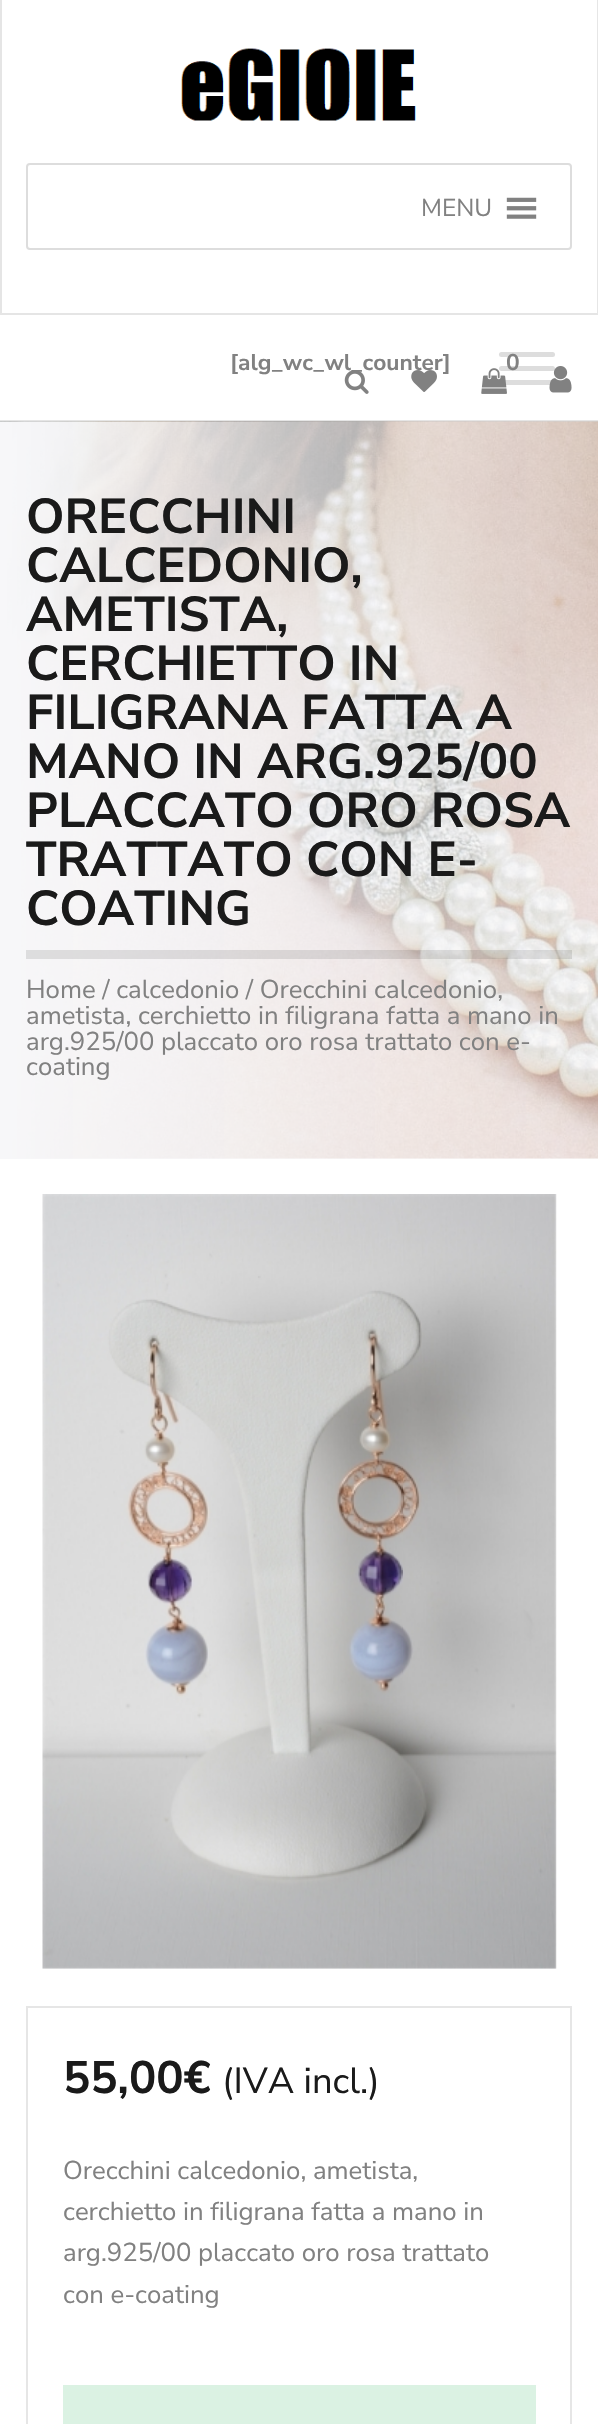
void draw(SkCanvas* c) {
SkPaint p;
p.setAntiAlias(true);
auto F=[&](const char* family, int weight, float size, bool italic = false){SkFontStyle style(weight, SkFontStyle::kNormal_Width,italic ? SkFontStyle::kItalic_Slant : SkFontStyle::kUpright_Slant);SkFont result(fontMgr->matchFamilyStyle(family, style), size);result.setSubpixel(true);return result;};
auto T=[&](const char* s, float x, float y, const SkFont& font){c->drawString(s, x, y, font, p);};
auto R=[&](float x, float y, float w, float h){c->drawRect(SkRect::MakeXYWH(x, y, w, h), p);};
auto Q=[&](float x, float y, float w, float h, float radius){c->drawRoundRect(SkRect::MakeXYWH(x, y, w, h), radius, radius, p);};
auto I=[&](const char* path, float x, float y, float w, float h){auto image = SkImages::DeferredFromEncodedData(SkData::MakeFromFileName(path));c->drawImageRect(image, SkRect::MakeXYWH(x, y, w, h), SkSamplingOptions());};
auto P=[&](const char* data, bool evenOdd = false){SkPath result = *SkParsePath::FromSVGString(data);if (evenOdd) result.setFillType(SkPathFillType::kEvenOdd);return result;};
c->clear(0xffffffff);
p.setColor(0xffe6e6e6);
c->drawPath(P("M598 0v315l-1-2v-313z"),p);
p.setColor(0x1a000000);
c->drawPath(P("M598 315h-598l2-2h595z"),p);
c->drawPath(P("M0 315v-315h2v313z"),p);
I("1.png",181,48,235,73);
p.setStroke(true);
p.setStrokeWidth(2);
p.setColor(0xffdddddd);
c->drawRoundRect(SkRect::MakeXYWH(27,164,544,85),3,3,p);
auto f1 = F("Nunito Sans",400,24.5);
p.setStroke(false);
p.setColor(0xff818181);
T("MENU",421,216,f1);
I("2.png",506,197,31,22);
I("7.png",0,421,598,738);
p.setColor(0x1a000000);
R(0,420,598,2);
I("3.png",411,370,26,22);
I("6.png",344,370,25,24);
auto f2 = F("Nunito Sans",700,22.75);
p.setColor(0xff818181);
T("[alg_wc_wl_counter]",230,370,f2);
p.setColor(0xffdddddd);
Q(499,366,56,5,2.5);
R(499,380,56,5);
I("4.png",481,368,26,26);
Q(499,352,56,5,2.5);
p.setColor(0xff818181);
T("0",506,370,f2);
I("5.png",549,366,23,27);
{
const SkColor colors[] = {0xfff7f7f9,0x80f7f7f9};
const float stops[] = {0,1};
const SkPoint ends[] = {{0,790}, {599,790}};
p.setShader(SkGradientShader::MakeLinear(ends, colors, stops, 2, SkTileMode::kClamp));
p.setAlpha(255);
}
R(0,422,598,737);
auto f3 = F("Nunito Sans",700,49);
p.setShader(nullptr);
p.setColor(0xff1a1a1a);
T("ORECCHINI",26,533,f3);
T("CALCEDONIO,",26,582,f3);
T("AMETISTA,",26,631,f3);
T("CERCHIETTO IN",26,680,f3);
T("FILIGRANA FATTA A",26,729,f3);
T("MANO IN ARG.925/00",26,778,f3);
T("PLACCATO ORO ROSA",26,827,f3);
T("TRATTATO CON E-",26,876,f3);
T("COATING",26,925,f3);
p.setColor(0x1a000000);
R(26,950,546,9);
auto f4 = F("Nunito Sans",400,25.75);
p.setColor(0xff818181);
T("Home / calcedonio / Orecchini calcedonio,",26,998,f4);
T("ametista, cerchietto in filigrana fatta a mano in",26,1024,f4);
T("arg.925/00 placcato oro rosa trattato con e-",26,1050,f4);
T("coating",26,1075,f4);
I("8.png",42,1194,515,775);
p.setStroke(true);
p.setColor(0xffe6e6e6);
c->drawRect(SkRect::MakeXYWH(27,2007,544,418),p);
auto f5 = F("Nunito Sans",700,45.5);
p.setStroke(false);
p.setColor(0xff1a1a1a);
T("55,00€",63,2093,f5);
auto f6 = F("Nunito Sans",400,36.25);
T("(IVA incl.)",222,2093,f6);
p.setColor(0xff818181);
T("Orecchini calcedonio, ametista,",63,2179,f4);
T("cerchietto in filigrana fatta a mano in",63,2220,f4);
T("arg.925/00 placcato oro rosa trattato",63,2261,f4);
T("con e-coating",63,2303,f4);
p.setColor(0xffdbf2e3);
R(63,2385,473,39);
}
